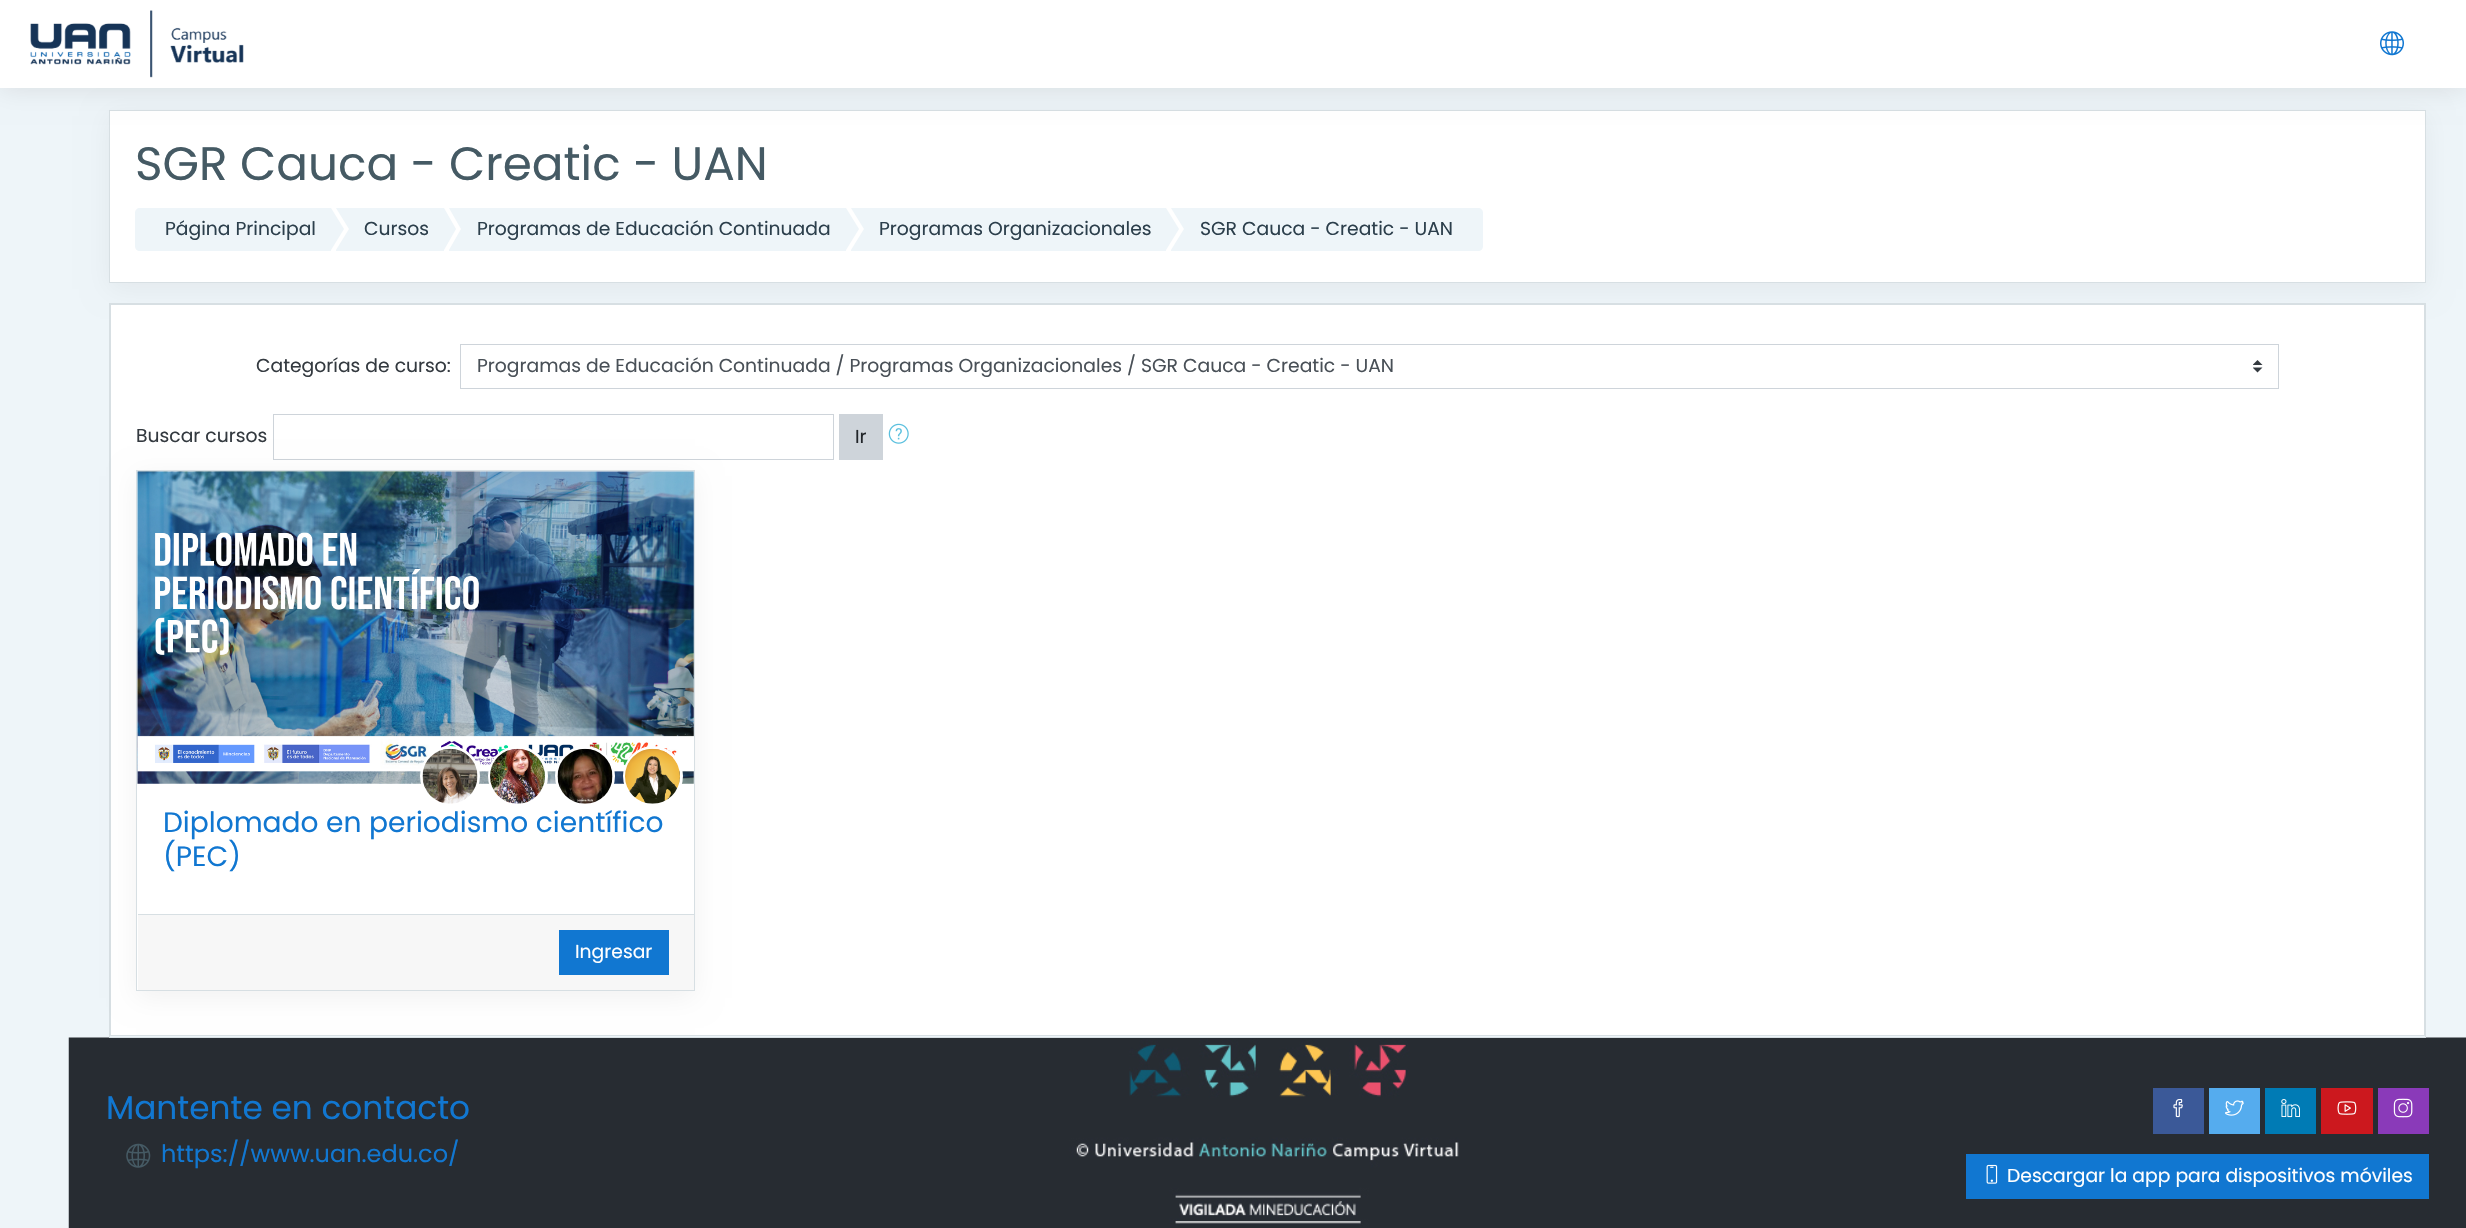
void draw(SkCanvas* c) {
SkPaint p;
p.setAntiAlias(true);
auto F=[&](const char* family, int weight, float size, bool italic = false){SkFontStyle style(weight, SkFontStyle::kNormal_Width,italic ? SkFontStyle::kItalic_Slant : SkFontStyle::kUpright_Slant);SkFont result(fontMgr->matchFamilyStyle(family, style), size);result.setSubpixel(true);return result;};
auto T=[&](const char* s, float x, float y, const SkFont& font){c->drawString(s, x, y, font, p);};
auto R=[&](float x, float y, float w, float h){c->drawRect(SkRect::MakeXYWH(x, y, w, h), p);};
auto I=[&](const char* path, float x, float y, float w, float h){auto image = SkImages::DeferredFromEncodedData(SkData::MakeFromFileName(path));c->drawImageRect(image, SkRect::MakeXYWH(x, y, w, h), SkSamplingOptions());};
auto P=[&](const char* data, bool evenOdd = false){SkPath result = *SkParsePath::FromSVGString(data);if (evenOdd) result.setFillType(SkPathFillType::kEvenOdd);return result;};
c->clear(0xffeef5f9);
p.setColor(0x0d000000);
p.setMaskFilter(SkMaskFilter::MakeBlur(kNormal_SkBlurStyle, 12.5));
c->drawRect(SkRect::MakeXYWH(109,116,2317,173),p);
p.setMaskFilter(nullptr);
p.setColor(0xffffffff);
c->drawRect(SkRect::MakeXYWH(109.5,110.5,2316,172),p);
p.setStroke(true);
p.setStrokeWidth(1);
p.setColor(0xffd7dfe3);
c->drawRect(SkRect::MakeXYWH(109.5,110.5,2316,172),p);
p.setStroke(false);
p.setColor(0x1a000000);
p.setMaskFilter(SkMaskFilter::MakeBlur(kNormal_SkBlurStyle, 12.5));
c->drawRect(SkRect::MakeXYWH(0,0,2466,88),p);
p.setMaskFilter(nullptr);
p.setColor(0xffffffff);
R(0,0,2466,88);
I("1.png",30,10,214,68);
I("2.png",2380,31,24,25);
auto f1 = F("Poppins",400,46.9);
p.setColor(0xff455a64);
T("SGR Cauca - Creatic - UAN",135,180,f1);
p.setColor(0xffeef5f9);
c->drawPath(P("M140 208h191v43h-191c-3 0-5-2-5-5v-33c0-3 2-5 5-5z"),p);
auto f2 = F("Poppins",400,18.75);
p.setColor(0xff2c3f4c);
T("Página Principal",165,235,f2);
p.setColor(0xffeef5f9);
R(336,208,108,43);
p.setColor(0xffffffff);
c->drawPath(P("M336 250v-42l13 21z"),p);
p.setColor(0xffeef5f9);
c->drawPath(P("M331 250v-42l13 21z"),p);
p.setColor(0xff2c3f4c);
T("Cursos",364,235,f2);
p.setColor(0xffeef5f9);
R(449,208,397,43);
p.setColor(0xffffffff);
c->drawPath(P("M449 250v-42l12 21z"),p);
p.setColor(0xffeef5f9);
c->drawPath(P("M444 250v-42l12 21z"),p);
p.setColor(0xff2c3f4c);
T("Programas de Educación Continuada",477,235,f2);
p.setColor(0xffeef5f9);
R(851,208,315,43);
p.setColor(0xffffffff);
c->drawPath(P("M851 250v-42l13 21z"),p);
p.setColor(0xffeef5f9);
c->drawPath(P("M846 250v-42l13 21z"),p);
p.setColor(0xff2c3f4c);
T("Programas Organizacionales",879,235,f2);
p.setColor(0xffeef5f9);
c->drawPath(P("M1171 208h307c3 0 5 2 5 5v33c0 3-2 5-5 5h-307z"),p);
p.setColor(0xffffffff);
c->drawPath(P("M1171 250v-42l13 21z"),p);
p.setColor(0xffeef5f9);
c->drawPath(P("M1166 250v-42l13 21z"),p);
p.setColor(0xff2c3f4c);
T("SGR Cauca - Creatic - UAN",1200,235,f2);
I("10.png",68,1037,2398,191);
p.setStroke(true);
p.setColor(0xffd7dfe3);
c->drawRect(SkRect::MakeXYWH(109.5,303.5,2316,734),p);
p.setStroke(false);
p.setColor(0xffffffff);
c->drawRect(SkRect::MakeXYWH(110.5,304.5,2314,731),p);
p.setStroke(true);
p.setColor(0xffd7dfe3);
c->drawRect(SkRect::MakeXYWH(110.5,304.5,2314,731),p);
p.setStroke(false);
p.setColor(0xff343a40);
T("Categorías de curso:",256,372,f2);
I("3.png",2253,360,10,13);
p.setStroke(true);
p.setColor(0xffced4da);
c->drawRect(SkRect::MakeXYWH(460.5,344.5,1818,44),p);
p.setStroke(false);
p.setColor(0xff495057);
T("Programas de Educación Continuada / Programas Organizacionales / SGR Cauca - Creatic - UAN",477,372,f2);
p.setColor(0xff343a40);
T("Buscar cursos",136,442,f2);
p.setStroke(true);
p.setColor(0xffced4da);
c->drawRect(SkRect::MakeXYWH(273.5,414.5,560,45),p);
p.setStroke(false);
R(839,414,44,46);
p.setColor(0xff212529);
T("Ir",855,443,f2);
I("4.png",888,423,21,21);
p.setColor(0x0d000000);
p.setMaskFilter(SkMaskFilter::MakeBlur(kNormal_SkBlurStyle, 12.5));
c->drawRect(SkRect::MakeXYWH(136,476,559,522),p);
p.setMaskFilter(nullptr);
p.setColor(0xffffffff);
c->drawRect(SkRect::MakeXYWH(136.5,470.5,558,520),p);
p.setStroke(true);
p.setColor(0xffd7dfe3);
c->drawRect(SkRect::MakeXYWH(136.5,470.5,558,520),p);
I("5.png",137,471,557,313);
p.setStrokeWidth(3);
p.setColor(0xffffffff);
c->drawCircle(450,776,28.5,p);
c->drawCircle(518,776,28.5,p);
c->drawCircle(585,776,28.5,p);
c->drawCircle(653,776,28.5,p);
I("6.png",422,748,56,56);
I("7.png",490,748,55,56);
I("8.png",557,748,56,56);
I("9.png",625,748,55,56);
auto f3 = F("Poppins",400,28.1);
p.setStroke(false);
p.setColor(0xff1177d1);
T("Diplomado en periodismo científico",163,832,f3);
T("(PEC)",163,866,f3);
p.setColor(0xfff7f7f7);
R(138,915,556,75);
p.setColor(0xffd7dfe3);
R(138,914,556,1);
p.setColor(0xff1177d1);
R(559,930,110,45);
p.setColor(0xffffffff);
T("Ingresar",575,958,f2);
auto f4 = F("Poppins",400,32.75);
p.setColor(0xff1177d1);
T("Mantente en contacto",106,1119,f4);
I("11.png",126,1143,25,25);
auto f5 = F("Poppins",400,24);
T("https://www.uan.edu.co/",161,1162,f5);
p.setColor(0xff3b5998);
R(2153,1088,51,46);
I("12.png",2173,1099,10,19);
p.setColor(0xff55acee);
R(2209,1088,51,46);
I("13.png",2225,1100,19,16);
p.setColor(0xff007bb5);
R(2265,1088,51,46);
I("14.png",2281,1099,19,19);
p.setColor(0xffcc181e);
R(2321,1088,52,46);
I("15.png",2337,1101,20,14);
p.setColor(0xff8a3ab9);
R(2378,1088,51,46);
I("16.png",2393,1098,20,20);
p.setColor(0xff1177d1);
R(1966,1154,463,45);
I("17.png",1986,1164,12,20);
p.setColor(0xffffffff);
T("Descargar la app para dispositivos móviles",2007,1182,f2);
}
